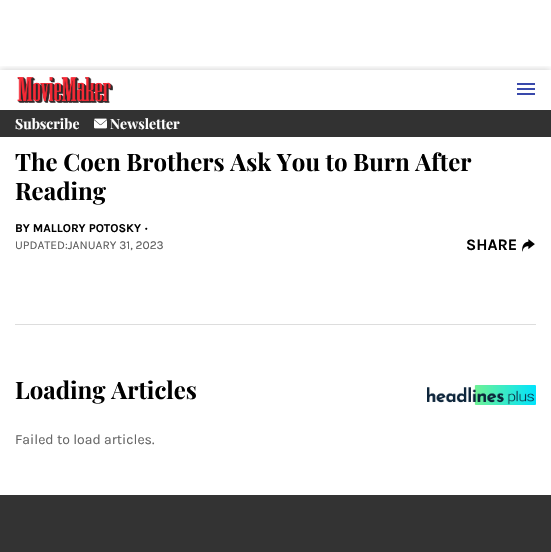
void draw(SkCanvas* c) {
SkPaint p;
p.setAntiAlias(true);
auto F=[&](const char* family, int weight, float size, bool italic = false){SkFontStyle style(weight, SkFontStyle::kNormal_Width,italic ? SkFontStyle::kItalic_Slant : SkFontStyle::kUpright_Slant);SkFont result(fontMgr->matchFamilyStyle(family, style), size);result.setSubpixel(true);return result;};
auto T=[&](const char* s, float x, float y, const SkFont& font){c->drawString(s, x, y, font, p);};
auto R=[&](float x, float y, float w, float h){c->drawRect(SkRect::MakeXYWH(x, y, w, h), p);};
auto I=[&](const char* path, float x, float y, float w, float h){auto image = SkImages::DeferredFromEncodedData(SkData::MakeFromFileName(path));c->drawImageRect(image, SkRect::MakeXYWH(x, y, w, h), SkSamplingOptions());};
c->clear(0xffffffff);
c->save();
c->clipRect(SkRect::MakeXYWH(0,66,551,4));
p.setColor(0x33000000);
p.setMaskFilter(SkMaskFilter::MakeBlur(kNormal_SkBlurStyle, 3.5));
c->drawRect(SkRect::MakeXYWH(0,70,551,40),p);
p.setMaskFilter(nullptr);
c->restore();
I("1.png",17,77,96,26);
p.setColor(0xff3949ab);
R(517,83,18,2);
R(517,88,18,2);
R(517,93,18,2);
p.setColor(0xff323232);
R(0,110,551,27);
auto f1 = F("Playfair Display",700,14);
p.setColor(0xffffffff);
T("Subscribe",15,129,f1);
I("2.png",94,118,13,11);
T("Newsletter",110,129,f1);
auto f2 = F("Playfair Display",700,24);
p.setColor(0xff000000);
T("The Coen Brothers Ask You to Burn After",15,171,f2);
T("Reading",15,200,f2);
auto f3 = F("Karla",700,12);
T("BY MALLORY POTOSKY",15,232,f3);
T("·",145,232,f3);
auto f4 = F("Karla",400,12);
p.setColor(0xff5e5e5e);
T("UPDATED:JANUARY 31, 2023",15,249,f4);
auto f5 = F("Karla",700,16);
p.setColor(0xff000000);
T("SHARE",466,250,f5);
I("3.png",522,239,13,13);
p.setColor(0xffdddddd);
R(15,324,521,1);
p.setColor(0xff000000);
T("Loading Articles",15,399,f2);
I("4.png",427,385,109,20);
auto f6 = F("Karla",400,14);
p.setColor(0xff666666);
T("Failed to load articles.",15,444,f6);
p.setColor(0xff333333);
R(0,495,551,57);
}
